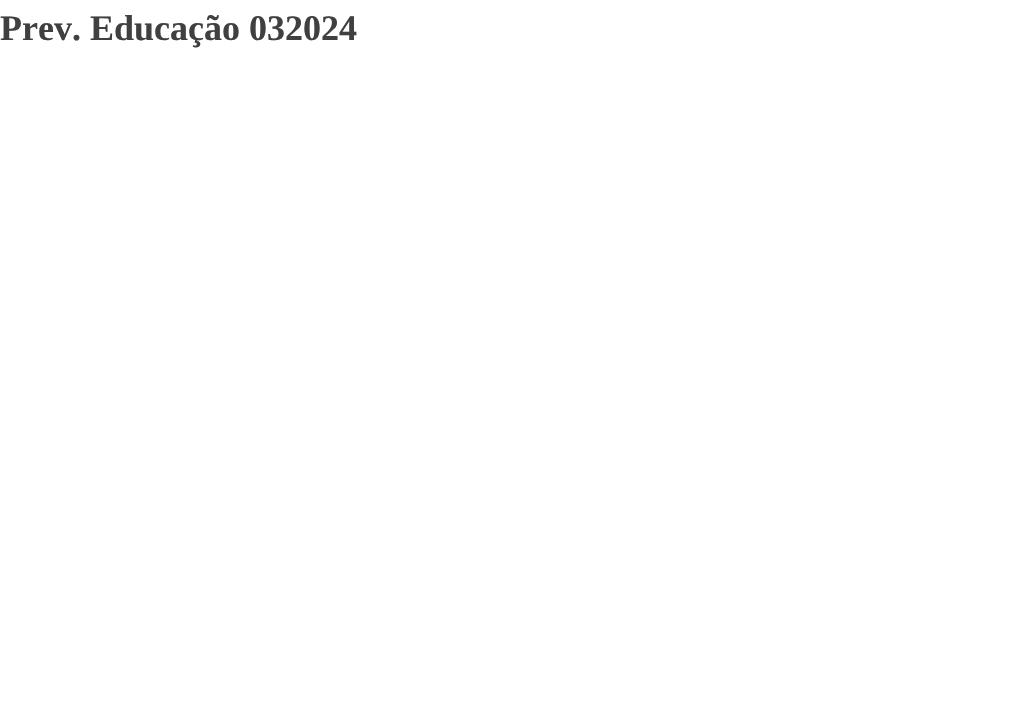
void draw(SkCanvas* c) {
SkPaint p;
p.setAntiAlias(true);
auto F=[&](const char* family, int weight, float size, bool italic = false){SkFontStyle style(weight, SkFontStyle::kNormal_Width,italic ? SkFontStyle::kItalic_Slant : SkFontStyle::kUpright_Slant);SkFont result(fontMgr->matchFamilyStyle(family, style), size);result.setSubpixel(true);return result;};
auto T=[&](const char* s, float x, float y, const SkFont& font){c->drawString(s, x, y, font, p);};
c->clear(0xffffffff);
auto f1 = F("Liberation Serif",700,36);
p.setColor(0xff404040);
T("Prev. Educação 032024",0,40,f1);
}
